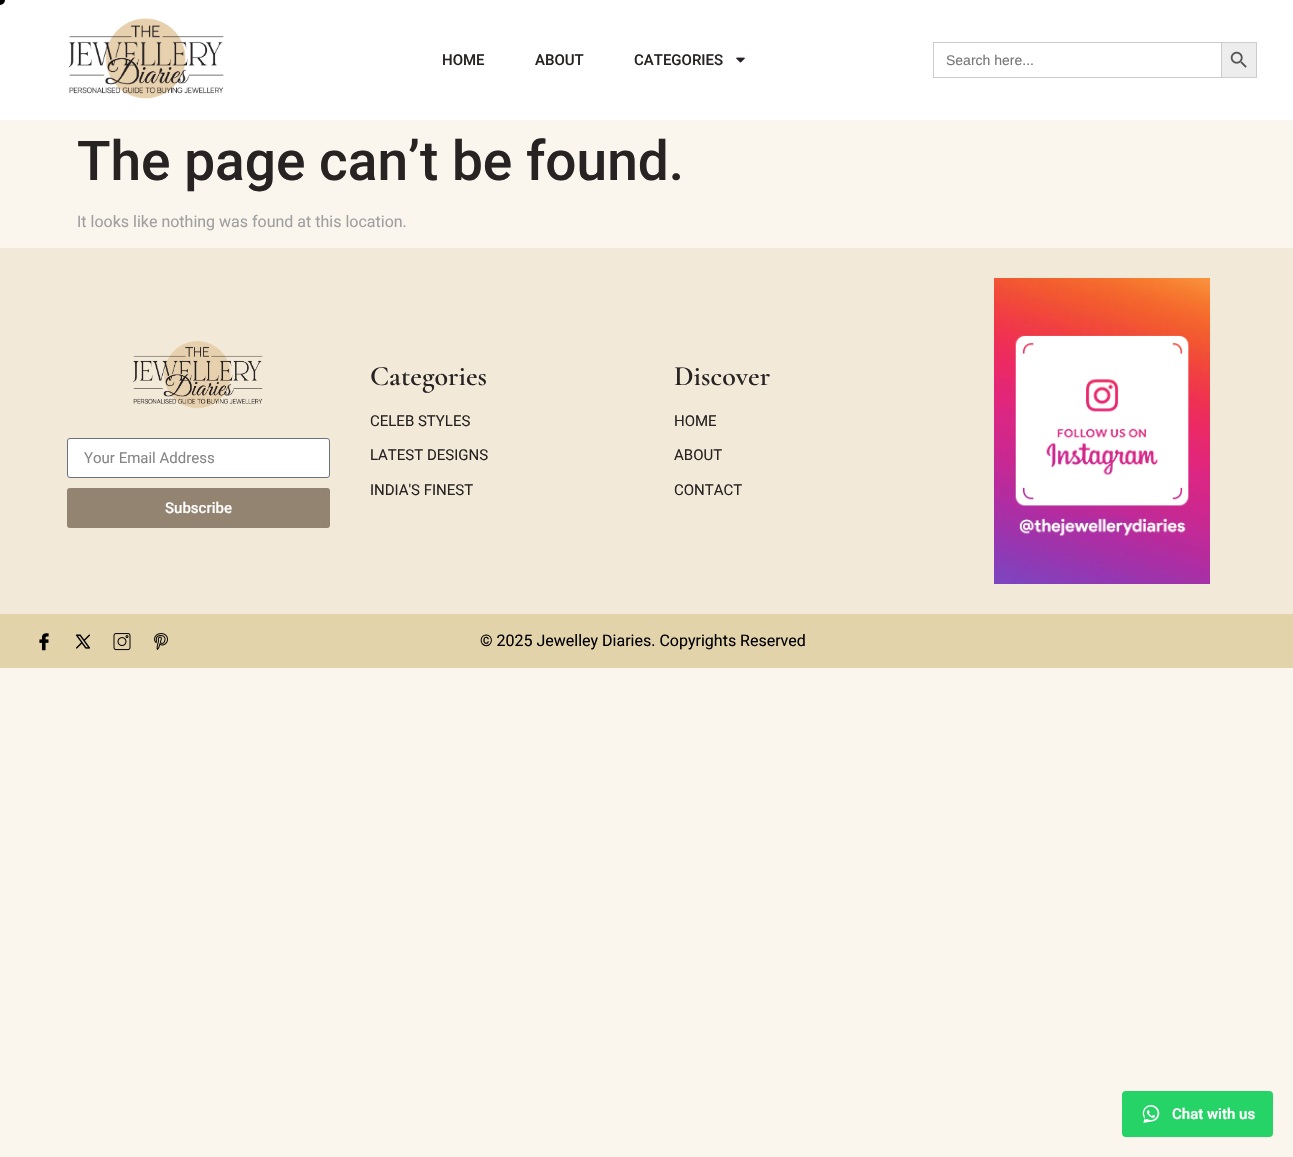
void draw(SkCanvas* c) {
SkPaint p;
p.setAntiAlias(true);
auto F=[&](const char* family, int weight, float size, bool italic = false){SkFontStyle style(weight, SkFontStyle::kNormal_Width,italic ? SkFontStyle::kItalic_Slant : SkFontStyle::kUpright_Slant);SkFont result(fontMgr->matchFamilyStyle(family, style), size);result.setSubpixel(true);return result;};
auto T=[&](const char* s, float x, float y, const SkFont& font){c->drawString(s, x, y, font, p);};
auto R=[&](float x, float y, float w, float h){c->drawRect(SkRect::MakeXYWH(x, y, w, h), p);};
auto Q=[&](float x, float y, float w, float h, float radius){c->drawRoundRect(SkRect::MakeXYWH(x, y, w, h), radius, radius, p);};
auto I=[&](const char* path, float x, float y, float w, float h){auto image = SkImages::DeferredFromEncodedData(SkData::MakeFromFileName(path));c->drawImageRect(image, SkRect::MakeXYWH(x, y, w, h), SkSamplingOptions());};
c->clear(0xfffaf5ed);
p.setColor(0xffffffff);
R(0,0,1293,120);
I("1.png",68,18,156,81);
auto f1 = F("Roboto",500,15);
p.setColor(0xff272323);
T("HOME",442,65,f1);
T("ABOUT",535,65,f1);
T("CATEGORIES",634,65,f1);
I("2.png",736,57,9,6);
p.setColor(0xffcccccc);
R(933,42,288,1);
R(933,77,288,1);
R(933,42,1,36);
auto f2 = F("Liberation Sans",400,14);
p.setColor(0xff757575);
T("Search here...",946,65,f2);
p.setColor(0xffededed);
c->drawRect(SkRect::MakeXYWH(1221.5,42.5,35,35),p);
p.setStroke(true);
p.setStrokeWidth(1);
p.setColor(0xffcccccc);
c->drawRect(SkRect::MakeXYWH(1221.5,42.5,35,35),p);
I("3.png",1230,51,17,17);
auto f3 = F("Roboto",500,55);
p.setStroke(false);
p.setColor(0xff272323);
T("The page can’t be found.",77,180,f3);
auto f4 = F("Roboto",400,16);
p.setColor(0xff9f9f9f);
T("It looks like nothing was found at this location.",77,227,f4);
p.setColor(0xff000000);
c->drawCircle(0,0,5,p);
p.setColor(0xfff3e9d8);
R(0,248,1293,366);
I("4.png",133,341,130,68);
p.setColor(0xffffffff);
c->drawRoundRect(SkRect::MakeXYWH(67.5,438.5,262,39),2.5,2.5,p);
p.setStroke(true);
p.setColor(0xff69727d);
c->drawRoundRect(SkRect::MakeXYWH(67.5,438.5,262,39),2.5,2.5,p);
auto f5 = F("Roboto",400,15);
p.setStroke(false);
p.setColor(0xff868686);
T("Your Email Address",84,463,f5);
p.setColor(0xff938371);
Q(67,488,263,40,3);
p.setColor(0xffffffff);
T("Subscribe",165,513,f1);
auto f6 = F("Cormorant Garamond",600,28);
p.setColor(0xff272323);
T("Categories",370,385,f6);
T("CELEB STYLES",370,426,f5);
T("LATEST DESIGNS",370,460,f5);
T("INDIA'S FINEST",370,495,f5);
T("Discover",674,385,f6);
T("HOME",674,426,f5);
T("ABOUT",674,460,f5);
T("CONTACT",674,495,f5);
I("5.png",994,278,216,306);
p.setColor(0xffe3d3ab);
R(0,614,1293,54);
I("6.png",39,633,10,18);
I("7.png",75,634,15,15);
I("8.png",113,633,18,18);
I("9.png",154,633,14,17);
p.setColor(0xff000000);
T("© 2025 Jewelley Diaries. Copyrights Reserved",480,646,f4);
p.setColor(0xff25d366);
Q(1122,1091,151,46,4);
I("10.png",1142,1105,18,18);
auto f7 = F("Roboto",600,15);
p.setColor(0xffffffff);
T("Chat with us",1172,1119,f7);
}
